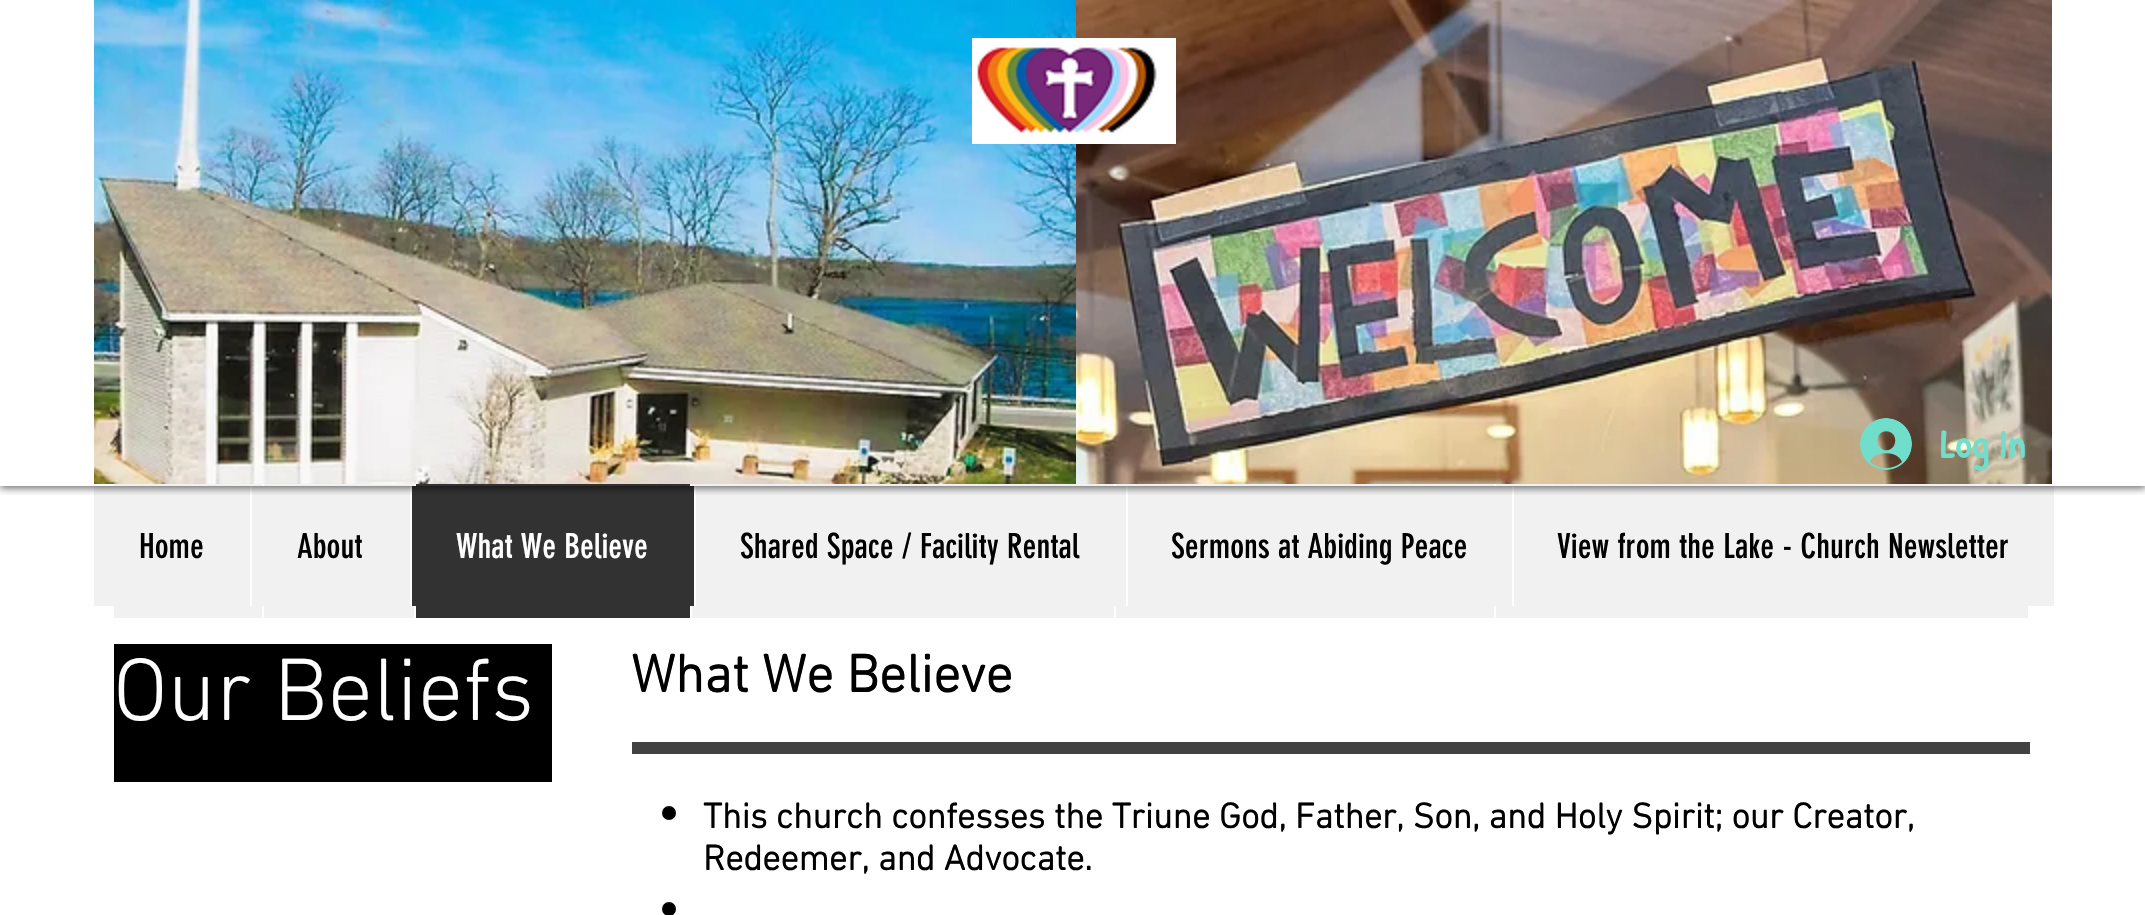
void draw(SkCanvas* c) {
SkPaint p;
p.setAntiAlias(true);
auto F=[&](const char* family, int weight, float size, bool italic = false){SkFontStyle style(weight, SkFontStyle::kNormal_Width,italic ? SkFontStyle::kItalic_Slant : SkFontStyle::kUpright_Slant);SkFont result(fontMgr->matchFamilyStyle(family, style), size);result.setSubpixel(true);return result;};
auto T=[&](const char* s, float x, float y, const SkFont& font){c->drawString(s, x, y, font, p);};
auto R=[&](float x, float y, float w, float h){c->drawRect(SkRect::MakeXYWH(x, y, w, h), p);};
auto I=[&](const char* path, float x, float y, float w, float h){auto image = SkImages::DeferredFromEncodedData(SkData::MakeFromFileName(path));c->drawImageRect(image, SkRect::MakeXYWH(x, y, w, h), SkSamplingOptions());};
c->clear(0xffffffff);
p.setColor(0xfff1f1f1);
R(114,484,1914,134);
p.setColor(0xffffffff);
R(262,484,2,134);
p.setColor(0xff323232);
R(416,484,274,134);
p.setColor(0xffffffff);
R(414,484,2,134);
R(690,484,2,134);
R(1114,484,2,134);
R(1494,484,2,134);
p.setColor(0xfff1f1f1);
R(94,486,1960,120);
p.setColor(0xffffffff);
R(250,486,2,120);
p.setColor(0xff323232);
R(412,486,282,120);
p.setColor(0xffffffff);
R(410,486,2,120);
R(694,486,2,120);
R(1126,486,2,120);
R(1512,486,2,120);
c->save();
c->clipRect(SkRect::MakeXYWH(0,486,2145,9));
p.setColor(0x99000000);
p.setMaskFilter(SkMaskFilter::MakeBlur(kNormal_SkBlurStyle, 4));
c->drawRect(SkRect::MakeXYWH(0,2,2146,486),p);
p.setMaskFilter(nullptr);
c->restore();
I("1.png",94,0,982,484);
I("2.png",1076,0,976,484);
I("3.png",972,38,204,106);
I("4.png",1860,418,52,52);
auto f1 = F("Patrick Hand",700,40);
p.setColor(0xff70deca);
T("Log In",1940,458,f1);
auto f2 = F("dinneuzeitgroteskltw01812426",400,34);
p.setColor(0xff000000);
T("Home",139,558,f2);
T("About",297,558,f2);
p.setColor(0xffffffff);
T("What We Believe",456,558,f2);
p.setColor(0xff000000);
T("Shared Space / Facility Rental",740,558,f2);
T("Sermons at Abiding Peace",1171,558,f2);
T("View from the Lake - Church Newsletter",1557,558,f2);
R(114,644,438,138);
auto f3 = F("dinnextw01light",700,54);
T("What We Believe",631,692,f3);
auto f4 = F("dinnextw01light",300,90);
p.setColor(0xffffffff);
T("Our Beliefs",113,720,f4);
p.setColor(0xff424242);
R(632,742,1398,12);
p.setColor(0xff000000);
c->drawCircle(669,813,7,p);
auto f5 = F("dinnextw01light",700,36);
T("This church confesses the Triune God, Father, Son, and Holy Spirit; our Creator,",703,828,f5);
T("Redeemer, and Advocate.",703,870,f5);
c->drawCircle(669,909,7,p);
}
